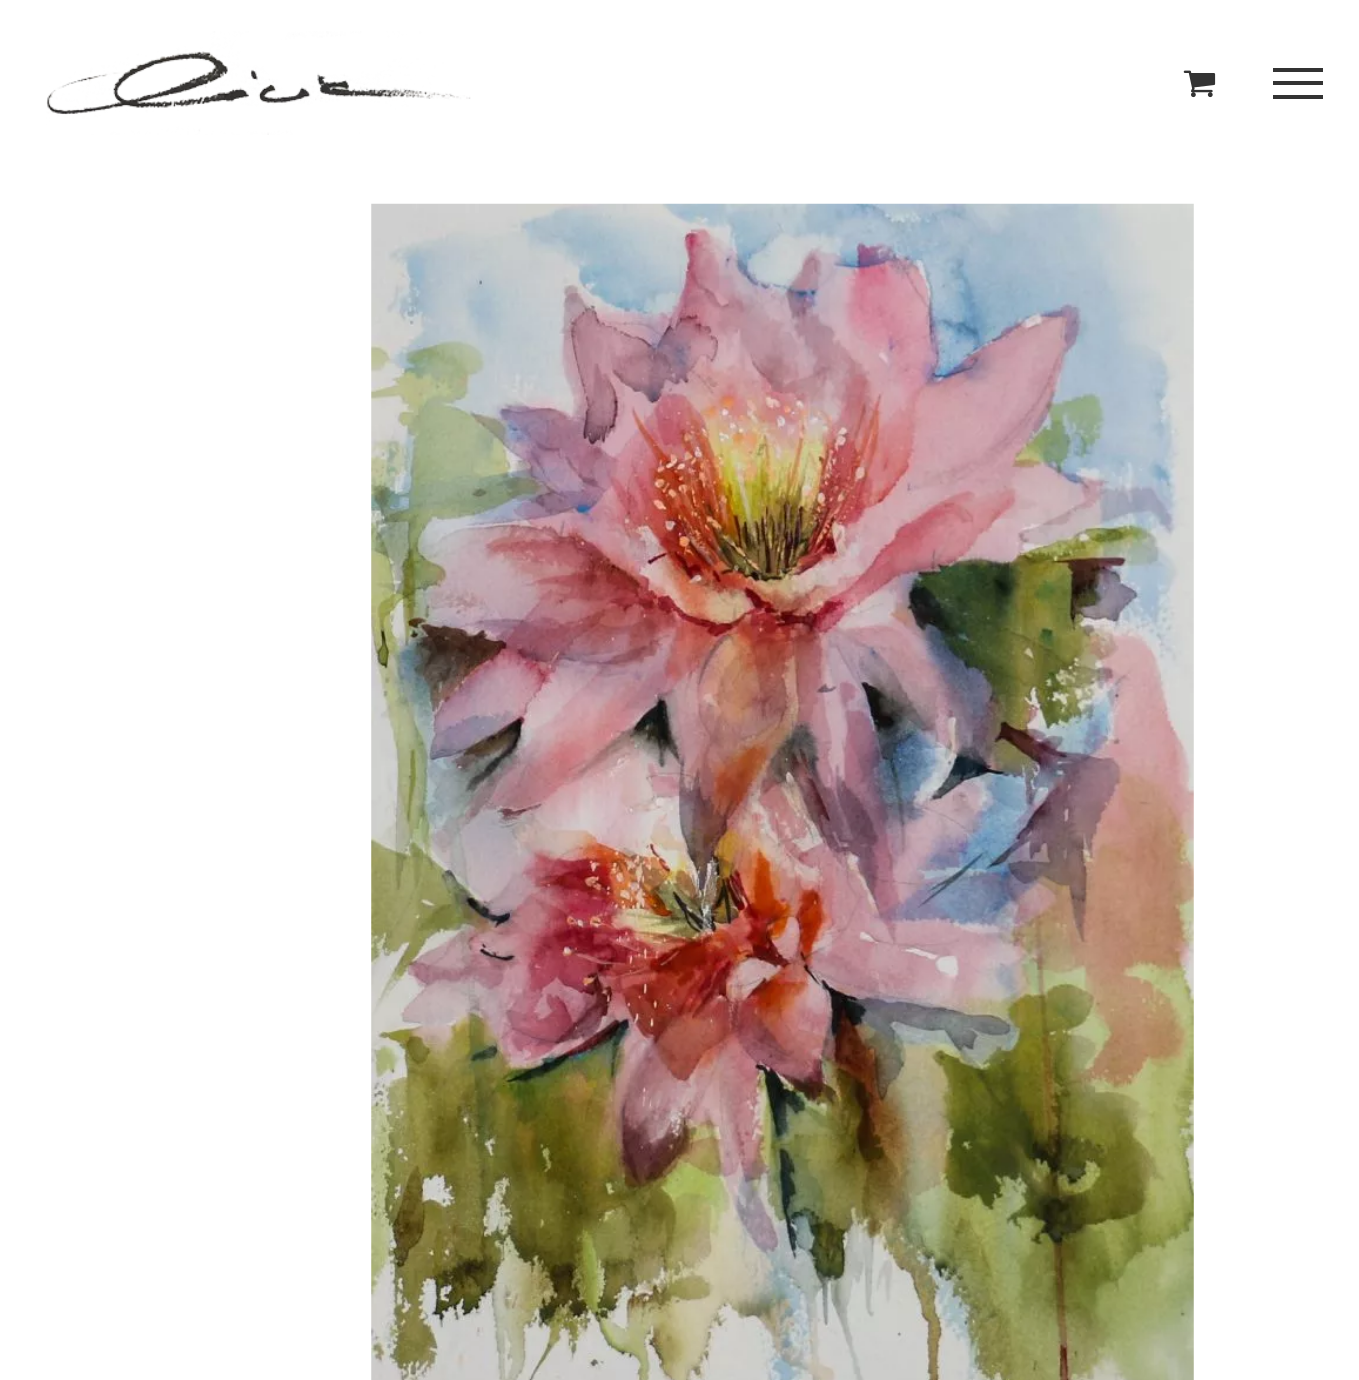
void draw(SkCanvas* c) {
SkPaint p;
p.setAntiAlias(true);
auto R=[&](float x, float y, float w, float h){c->drawRect(SkRect::MakeXYWH(x, y, w, h), p);};
auto I=[&](const char* path, float x, float y, float w, float h){auto image = SkImages::DeferredFromEncodedData(SkData::MakeFromFileName(path));c->drawImageRect(image, SkRect::MakeXYWH(x, y, w, h), SkSamplingOptions());};
c->clear(0xffffffff);
I("1.png",46,31,425,104);
I("2.png",1183,70,33,28);
p.setColor(0xff333333);
R(1273,68,50,4);
R(1273,81,50,4);
R(1273,95,50,4);
I("3.png",371,203,823,1177);
}
